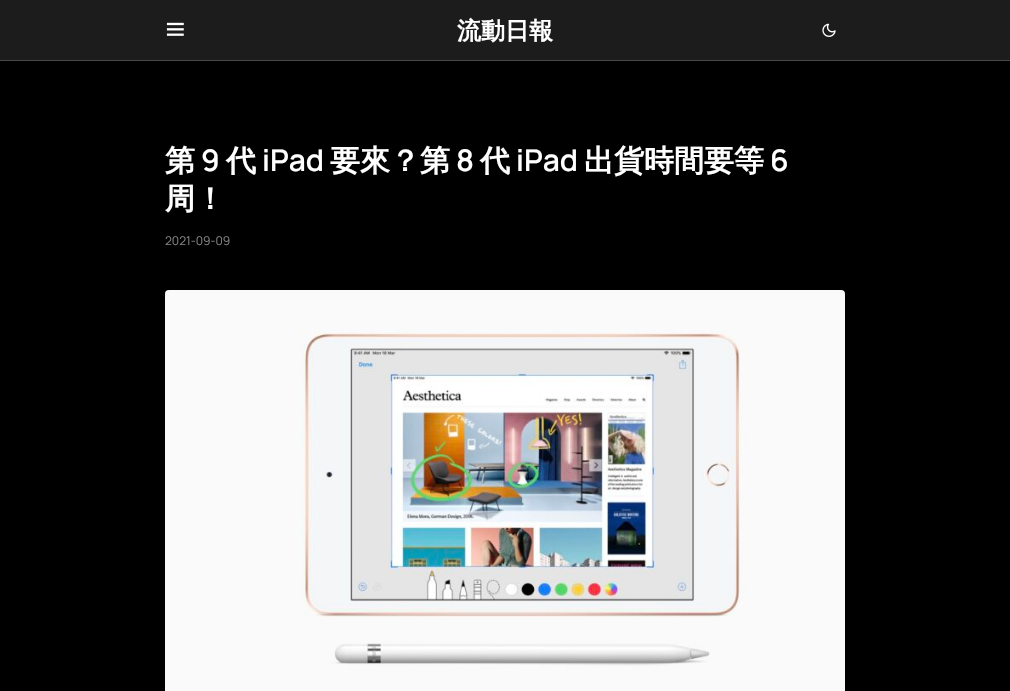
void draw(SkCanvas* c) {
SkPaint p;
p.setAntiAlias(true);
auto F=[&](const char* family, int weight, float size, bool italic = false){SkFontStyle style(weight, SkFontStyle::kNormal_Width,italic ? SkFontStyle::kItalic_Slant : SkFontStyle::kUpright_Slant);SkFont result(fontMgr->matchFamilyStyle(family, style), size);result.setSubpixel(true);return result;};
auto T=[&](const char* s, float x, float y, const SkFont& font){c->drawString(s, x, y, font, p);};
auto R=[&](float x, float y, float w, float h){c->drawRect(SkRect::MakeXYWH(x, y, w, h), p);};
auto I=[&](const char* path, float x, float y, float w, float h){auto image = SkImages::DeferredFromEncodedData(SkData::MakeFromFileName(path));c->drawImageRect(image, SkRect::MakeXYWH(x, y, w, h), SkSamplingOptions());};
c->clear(0xff000000);
p.setColor(0xff1c1c1c);
R(0,0,1010,60);
p.setColor(0xff494949);
R(0,60,1010,1);
I("1.png",166,22,18,14);
auto f1 = F("WenQuanYi Zen Hei",700,24);
p.setColor(0xffffffff);
T("流動日報",457,39,f1);
I("2.png",822,23,14,14);
auto f2 = F("WenQuanYi Zen Hei",700,30);
T("第",165,171,f2);
auto f3 = F("Manrope",600,30);
T("9",201,171,f3);
T("代",226,171,f2);
T("iPad",262,171,f3);
T("要來？第",330,171,f2);
T("8",456,171,f3);
T("代",480,171,f2);
T("iPad",516,171,f3);
T("出貨時間要等",584,171,f2);
T("6",770,171,f3);
T("周！",165,209,f2);
auto f4 = F("Manrope",400,12);
p.setColor(0xff858585);
T("2021-09-09",165,245,f4);
I("3.png",165,290,680,401);
}
